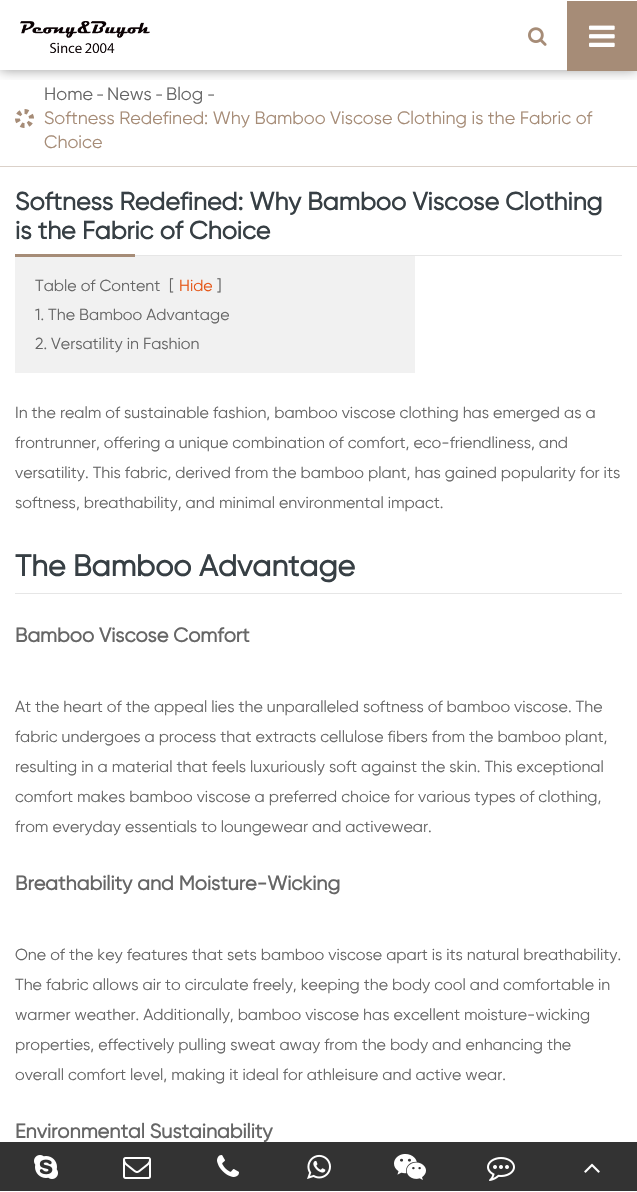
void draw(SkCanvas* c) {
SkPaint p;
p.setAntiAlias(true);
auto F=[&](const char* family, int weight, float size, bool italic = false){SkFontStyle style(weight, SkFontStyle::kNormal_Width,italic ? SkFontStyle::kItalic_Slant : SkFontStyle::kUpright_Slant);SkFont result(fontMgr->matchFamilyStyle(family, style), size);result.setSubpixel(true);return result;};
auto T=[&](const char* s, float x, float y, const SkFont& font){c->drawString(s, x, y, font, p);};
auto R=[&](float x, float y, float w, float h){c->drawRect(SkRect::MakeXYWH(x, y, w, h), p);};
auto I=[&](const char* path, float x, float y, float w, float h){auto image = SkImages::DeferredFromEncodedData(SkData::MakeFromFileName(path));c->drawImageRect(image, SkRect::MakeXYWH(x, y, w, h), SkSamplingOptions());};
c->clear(0xffffffff);
c->save();
c->clipRect(SkRect::MakeXYWH(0,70,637,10));
p.setColor(0x66000000);
p.setMaskFilter(SkMaskFilter::MakeBlur(kNormal_SkBlurStyle, 6));
c->drawRect(SkRect::MakeXYWH(0,0,637,70),p);
p.setMaskFilter(nullptr);
c->restore();
I("1.png",20,21,130,32);
I("2.png",528,27,19,19);
p.setColor(0xffa68c77);
R(567,1,70,70);
I("3.png",589,25,26,22);
p.setColor(0xffdbd1c9);
R(0,166,637,1);
I("4.png",15,109,19,19);
auto f1 = F("Gilroy",400,18);
p.setColor(0xff666666);
T("Home",44,100,f1);
auto f2 = F("Gilroy",400,16);
T("-",96,100,f2);
T("News",107,100,f1);
T("-",155,100,f2);
T("Blog",166,100,f1);
T("-",207,100,f2);
p.setColor(0xffa68c77);
T("Softness Redefined: Why Bamboo Viscose Clothing is the Fabric of",44,124,f1);
T("Choice",44,148,f1);
p.setColor(0xffe6e6e6);
R(135,255,487,1);
auto f3 = F("Gilroy",700,25);
p.setColor(0xff373f44);
T("Softness Redefined: Why Bamboo Viscose Clothing",15,210,f3);
T("is the Fabric of Choice",15,239,f3);
p.setColor(0xfff1f1f1);
R(15,256,400,117);
p.setColor(0xffa68c77);
R(15,254,120,3);
p.setColor(0xff666666);
T("Table of Content",35,291,f2);
T("[",169,291,f2);
p.setColor(0xffe55413);
T("Hide",179,291,f2);
p.setColor(0xff666666);
T("]",217,291,f2);
T("1. The Bamboo Advantage",35,320,f2);
T("2. Versatility in Fashion",35,349,f2);
T("In the realm of sustainable fashion, bamboo viscose clothing has emerged as a",15,418,f2);
T("frontrunner, offering a unique combination of comfort, eco-friendliness, and",15,448,f2);
T("versatility. This fabric, derived from the bamboo plant, has gained popularity for its",15,478,f2);
T("softness, breathability, and minimal environmental impact.",15,508,f2);
p.setColor(0xffe6e6e6);
R(15,593,607,1);
auto f4 = F("Gilroy",700,30);
p.setColor(0xff373f44);
T("The Bamboo Advantage",15,576,f4);
auto f5 = F("Gilroy",700,20);
p.setColor(0xff666666);
T("Bamboo Viscose Comfort",15,642,f5);
T("At the heart of the appeal lies the unparalleled softness of bamboo viscose. The",15,712,f2);
T("fabric undergoes a process that extracts cellulose fibers from the bamboo plant,",15,742,f2);
T("resulting in a material that feels luxuriously soft against the skin. This exceptional",15,772,f2);
T("comfort makes bamboo viscose a preferred choice for various types of clothing,",15,802,f2);
T("from everyday essentials to loungewear and activewear.",15,832,f2);
T("Breathability and Moisture-Wicking",15,890,f5);
T("One of the key features that sets bamboo viscose apart is its natural breathability.",15,960,f2);
T("The fabric allows air to circulate freely, keeping the body cool and comfortable in",15,990,f2);
T("warmer weather. Additionally, bamboo viscose has excellent moisture-wicking",15,1020,f2);
T("properties, effectively pulling sweat away from the body and enhancing the",15,1050,f2);
T("overall comfort level, making it ideal for athleisure and active wear.",15,1080,f2);
T("Environmental Sustainability",15,1138,f5);
p.setColor(0xff333333);
R(0,1142,637,49);
I("5.png",34,1155,24,24);
I("6.png",123,1157,28,22);
I("7.png",217,1155,22,22);
I("8.png",307,1154,24,25);
I("9.png",394,1154,32,26);
I("10.png",487,1157,28,24);
I("11.png",584,1163,16,10);
}
